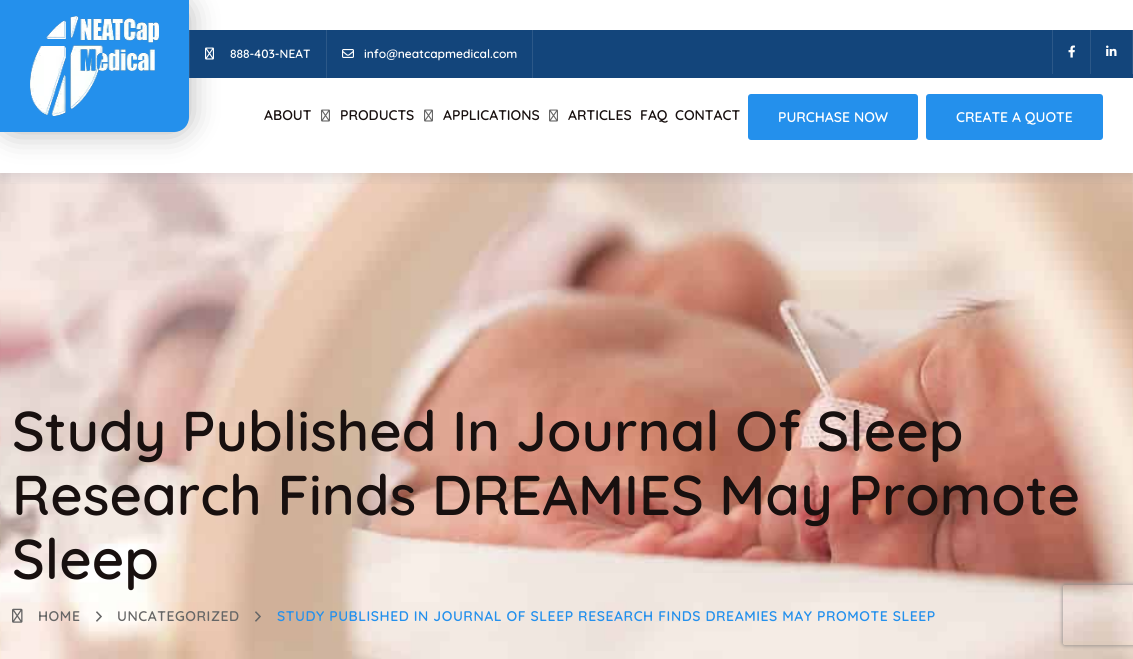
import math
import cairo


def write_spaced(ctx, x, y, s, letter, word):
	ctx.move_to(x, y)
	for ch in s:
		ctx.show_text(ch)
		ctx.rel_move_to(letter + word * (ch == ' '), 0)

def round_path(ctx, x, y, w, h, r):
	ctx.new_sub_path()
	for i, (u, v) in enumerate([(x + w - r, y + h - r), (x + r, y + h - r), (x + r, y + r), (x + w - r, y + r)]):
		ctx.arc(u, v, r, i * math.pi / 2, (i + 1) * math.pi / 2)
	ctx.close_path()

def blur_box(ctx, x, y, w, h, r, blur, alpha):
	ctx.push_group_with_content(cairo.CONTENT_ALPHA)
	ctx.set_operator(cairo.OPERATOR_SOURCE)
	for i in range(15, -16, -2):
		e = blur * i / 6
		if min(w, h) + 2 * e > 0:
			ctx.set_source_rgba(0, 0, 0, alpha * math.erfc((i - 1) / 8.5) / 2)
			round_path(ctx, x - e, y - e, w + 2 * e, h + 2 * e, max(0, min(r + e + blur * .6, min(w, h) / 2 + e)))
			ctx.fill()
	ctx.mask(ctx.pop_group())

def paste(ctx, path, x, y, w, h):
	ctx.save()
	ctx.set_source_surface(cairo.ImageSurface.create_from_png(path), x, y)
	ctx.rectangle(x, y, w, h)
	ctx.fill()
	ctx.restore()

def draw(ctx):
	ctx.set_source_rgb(1, 1, 1)
	ctx.paint()
	paste(ctx, 'media/7.png', 0, 173, 1133, 486)
	ctx.save()
	ctx.rectangle(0, 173, 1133, 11)
	ctx.clip()
	ctx.set_source_rgb(0, 0.129, 0.333)
	blur_box(ctx, 0, 5, 1133, 173, 0, 7.5, 0.1)
	ctx.restore()
	ctx.set_source_rgb(0, 0, 0)
	blur_box(ctx, 0, 0, 189, 132, 15, 15, 0.3)
	ctx.set_source_rgb(0.141, 0.565, 0.922)
	ctx.new_path()
	ctx.move_to(0, 0)
	ctx.line_to(189, 0)
	ctx.line_to(189, 117)
	ctx.curve_to(189, 125.5, 182.5, 132, 174, 132)
	ctx.line_to(0, 132)
	ctx.close_path()
	ctx.fill()
	paste(ctx, 'media/1.png', 30, 16, 129, 100)
	ctx.set_source_rgb(0.078, 0.271, 0.482)
	ctx.rectangle(190, 30, 943, 48)
	ctx.fill()
	ctx.set_source_rgb(0.173, 0.345, 0.533)
	ctx.rectangle(189, 30, 1, 48)
	ctx.fill()
	paste(ctx, 'media/2.png', 205, 47, 9, 13)
	ctx.select_font_face('Quicksand SemiBold')
	ctx.set_font_size(12)
	ctx.set_source_rgb(1, 1, 1)
	ctx.move_to(230, 58)
	ctx.show_text('888-403-NEAT')
	ctx.set_source_rgb(0.173, 0.345, 0.533)
	ctx.rectangle(532, 30, 1, 48)
	ctx.fill()
	ctx.rectangle(326, 30, 1, 48)
	ctx.fill()
	paste(ctx, 'media/3.png', 342, 49, 12, 9)
	ctx.set_source_rgb(1, 1, 1)
	ctx.move_to(364, 58)
	ctx.show_text('info@neatcapmedical.com')
	ctx.set_source_rgb(0.173, 0.345, 0.533)
	ctx.rectangle(1052, 30, 1, 44)
	ctx.fill()
	paste(ctx, 'media/4.png', 1068, 45, 7, 13)
	ctx.rectangle(1132, 30, 1, 44)
	ctx.fill()
	ctx.rectangle(1090, 30, 1, 44)
	ctx.fill()
	paste(ctx, 'media/5.png', 1106, 45, 11, 11)
	ctx.set_font_size(14)
	ctx.set_source_rgb(0.094, 0.063, 0.059)
	ctx.move_to(264, 120)
	ctx.show_text('ABOUT')
	paste(ctx, 'media/6.png', 321, 109, 9, 13)
	ctx.move_to(340, 120)
	ctx.show_text('PRODUCTS')
	paste(ctx, 'media/6.png', 424, 109, 9, 13)
	ctx.move_to(443, 120)
	ctx.show_text('APPLICATIONS')
	paste(ctx, 'media/6.png', 549, 109, 9, 13)
	for x, y, s in [
		(568, 120, 'ARTICLES'),
		(640, 120, 'FAQ'),
		(675, 120, 'CONTACT'),
	]:
		ctx.move_to(x, y)
		ctx.show_text(s)
	ctx.set_source_rgb(0.141, 0.565, 0.922)
	round_path(ctx, 748, 94, 170, 46, 3)
	ctx.fill()
	ctx.set_source_rgb(1, 1, 1)
	ctx.move_to(778, 122)
	ctx.show_text('PURCHASE NOW')
	ctx.set_source_rgb(0.141, 0.565, 0.922)
	round_path(ctx, 926, 94, 177, 46, 3)
	ctx.fill()
	ctx.set_source_rgb(1, 1, 1)
	ctx.move_to(956, 122)
	ctx.show_text('CREATE A QUOTE')
	ctx.set_font_size(56)
	ctx.set_source_rgb(0.094, 0.063, 0.059)
	for x, y, s in [
		(12, 451, 'Study Published In Journal Of Sleep'),
		(12, 515, 'Research Finds DREAMIES May Promote'),
		(12, 579, 'Sleep'),
	]:
		ctx.move_to(x, y)
		ctx.show_text(s)
	paste(ctx, 'media/8.png', 12, 608, 11, 15)
	ctx.set_font_size(14)
	ctx.set_source_rgb(0.4, 0.4, 0.4)
	write_spaced(ctx, 38, 621, 'HOME', 0.55, 0)
	paste(ctx, 'media/9.png', 96, 611, 6, 11)
	write_spaced(ctx, 117, 621, 'UNCATEGORIZED', 0.55, 0)
	paste(ctx, 'media/10.png', 255, 611, 6, 11)
	ctx.set_source_rgb(0.141, 0.565, 0.922)
	write_spaced(ctx, 277, 621, 'STUDY PUBLISHED IN JOURNAL OF SLEEP RESEARCH FINDS DREAMIES MAY PROMOTE SLEEP', 0.55, 0)
	ctx.save()
	ctx.set_fill_rule(cairo.FILL_RULE_EVEN_ODD)
	ctx.new_path()
	ctx.move_to(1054, 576)
	ctx.line_to(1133, 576)
	ctx.line_to(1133, 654)
	ctx.line_to(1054, 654)
	ctx.close_path()
	ctx.move_to(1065, 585)
	ctx.line_to(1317, 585)
	ctx.curve_to(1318, 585, 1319, 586, 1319, 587)
	ctx.line_to(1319, 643)
	ctx.curve_to(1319, 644, 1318, 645, 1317, 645)
	ctx.line_to(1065, 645)
	ctx.curve_to(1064, 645, 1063, 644, 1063, 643)
	ctx.line_to(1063, 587)
	ctx.curve_to(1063, 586, 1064, 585, 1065, 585)
	ctx.close_path()
	ctx.clip()
	ctx.set_source_rgb(0.502, 0.502, 0.502)
	blur_box(ctx, 1063, 585, 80, 60, 2, 2.5, 1)
	ctx.restore()


surface = cairo.ImageSurface(cairo.FORMAT_RGB24, 1133, 659)
ctx = cairo.Context(surface)
options = cairo.FontOptions()
options.set_hint_metrics(cairo.HINT_METRICS_OFF)
options.set_hint_style(cairo.HINT_STYLE_NONE)
ctx.set_font_options(options)
ctx.set_miter_limit(4)
draw(ctx)
surface.write_to_png('image.png')
